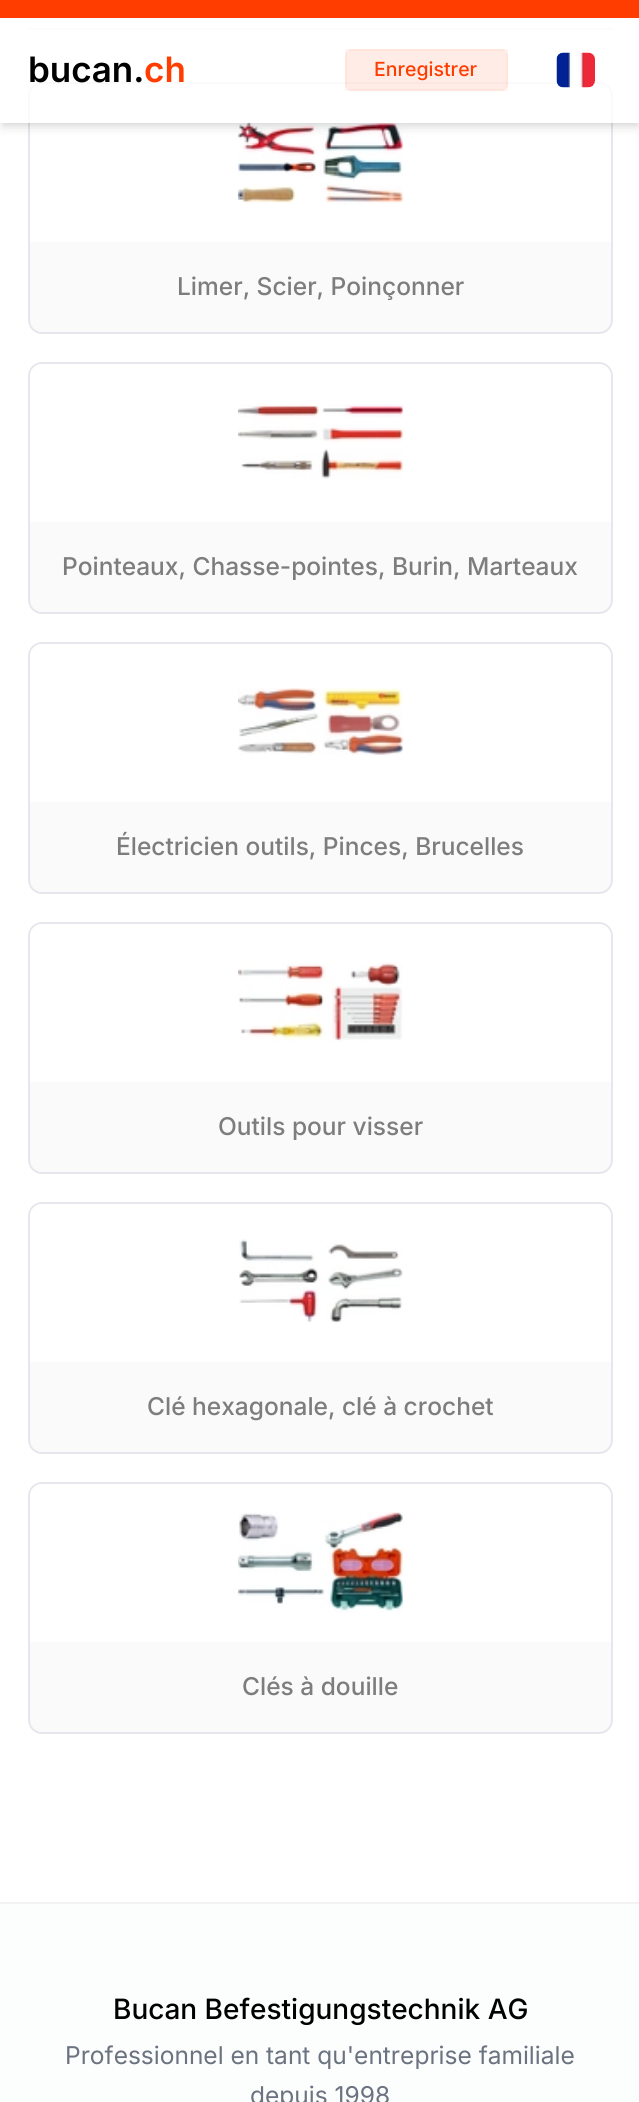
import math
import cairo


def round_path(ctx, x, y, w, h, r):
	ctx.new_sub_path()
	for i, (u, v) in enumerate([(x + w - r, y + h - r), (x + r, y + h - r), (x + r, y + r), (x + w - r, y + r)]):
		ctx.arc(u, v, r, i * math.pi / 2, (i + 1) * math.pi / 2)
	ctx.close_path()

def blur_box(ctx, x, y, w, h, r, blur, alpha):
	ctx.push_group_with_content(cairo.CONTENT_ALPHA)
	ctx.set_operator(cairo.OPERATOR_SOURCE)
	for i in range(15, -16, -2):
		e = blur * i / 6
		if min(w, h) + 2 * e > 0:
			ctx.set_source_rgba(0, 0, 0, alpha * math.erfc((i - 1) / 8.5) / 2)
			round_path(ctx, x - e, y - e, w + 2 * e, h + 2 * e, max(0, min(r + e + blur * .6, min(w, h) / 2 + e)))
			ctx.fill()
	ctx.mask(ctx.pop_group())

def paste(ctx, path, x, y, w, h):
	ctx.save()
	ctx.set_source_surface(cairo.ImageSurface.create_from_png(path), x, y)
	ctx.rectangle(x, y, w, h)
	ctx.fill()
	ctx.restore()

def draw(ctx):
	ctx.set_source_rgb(1, 1, 1)
	ctx.paint()
	ctx.set_source_rgb(0.949, 0.949, 0.949)
	ctx.rectangle(28, 28, 585, 2)
	ctx.fill()
	ctx.set_source_rgb(0.98, 0.98, 0.98)
	round_path(ctx, 29, 83, 583, 250, 13)
	ctx.fill_preserve()
	ctx.set_source_rgb(0.898, 0.906, 0.922)
	ctx.stroke()
	ctx.set_source_rgb(1, 1, 1)
	ctx.new_path()
	ctx.move_to(42, 84)
	ctx.line_to(599, 84)
	ctx.curve_to(605.5, 84, 611, 89.5, 611, 96)
	ctx.line_to(611, 242)
	ctx.line_to(30, 242)
	ctx.line_to(30, 96)
	ctx.curve_to(30, 89.5, 35.5, 84, 42, 84)
	ctx.close_path()
	ctx.fill()
	paste(ctx, 'media/2.png', 238, 120, 165, 84)
	ctx.save()
	ctx.set_fill_rule(cairo.FILL_RULE_EVEN_ODD)
	ctx.new_path()
	ctx.move_to(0, 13)
	ctx.line_to(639, 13)
	ctx.line_to(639, 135)
	ctx.line_to(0, 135)
	ctx.close_path()
	ctx.move_to(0, 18)
	ctx.line_to(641, 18)
	ctx.line_to(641, 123)
	ctx.line_to(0, 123)
	ctx.close_path()
	ctx.clip()
	ctx.set_source_rgb(0, 0, 0)
	blur_box(ctx, 4, 25, 633, 98, 0, 3.5, 0.1)
	ctx.restore()
	ctx.save()
	ctx.set_fill_rule(cairo.FILL_RULE_EVEN_ODD)
	ctx.new_path()
	ctx.move_to(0, 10)
	ctx.line_to(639, 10)
	ctx.line_to(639, 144)
	ctx.line_to(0, 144)
	ctx.close_path()
	ctx.move_to(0, 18)
	ctx.line_to(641, 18)
	ctx.line_to(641, 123)
	ctx.line_to(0, 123)
	ctx.close_path()
	ctx.clip()
	ctx.set_source_rgb(0, 0, 0)
	blur_box(ctx, 2, 26, 637, 102, 0, 5, 0.1)
	ctx.restore()
	ctx.set_source_rgb(1, 0.239, 0)
	ctx.rectangle(0, 0, 639, 18)
	ctx.fill()
	ctx.set_source_rgba(1, 1, 1, 0.8)
	ctx.rectangle(0, 28, 639, 95)
	ctx.fill()
	ctx.select_font_face('Inter SemiBold')
	ctx.set_font_size(35)
	ctx.set_source_rgb(0, 0, 0)
	ctx.move_to(28, 82)
	ctx.show_text('bucan.')
	ctx.set_source_rgb(1, 0.239, 0)
	ctx.move_to(144, 82)
	ctx.show_text('ch')
	ctx.set_source_rgba(1, 0.239, 0, 0.1)
	round_path(ctx, 345, 49, 163, 42, 7)
	ctx.fill()
	ctx.rectangle(346, 50, 161, 40)
	ctx.set_source_rgba(1, 0.239, 0, 0.05)
	ctx.stroke()
	ctx.select_font_face('Inter Medium')
	ctx.set_font_size(19.5)
	ctx.set_source_rgb(1, 0.239, 0)
	ctx.move_to(374, 76)
	ctx.show_text('Enregistrer')
	paste(ctx, 'media/1.png', 556, 52, 39, 36)
	ctx.set_font_size(24.5)
	ctx.set_source_rgb(0.49, 0.49, 0.49)
	ctx.move_to(177, 295)
	ctx.show_text('Limer, Scier, Poinçonner')
	ctx.set_source_rgb(0.98, 0.98, 0.98)
	round_path(ctx, 29, 363, 583, 250, 13)
	ctx.fill_preserve()
	ctx.set_source_rgb(0.898, 0.906, 0.922)
	ctx.stroke()
	ctx.set_source_rgb(1, 1, 1)
	ctx.new_path()
	ctx.move_to(42, 364)
	ctx.line_to(599, 364)
	ctx.curve_to(605.5, 364, 611, 369.5, 611, 376)
	ctx.line_to(611, 522)
	ctx.line_to(30, 522)
	ctx.line_to(30, 376)
	ctx.curve_to(30, 369.5, 35.5, 364, 42, 364)
	ctx.close_path()
	ctx.fill()
	paste(ctx, 'media/3.png', 238, 404, 165, 75)
	ctx.set_source_rgb(0.49, 0.49, 0.49)
	ctx.move_to(62, 575)
	ctx.show_text('Pointeaux, Chasse-pointes, Burin, Marteaux')
	ctx.set_source_rgb(0.98, 0.98, 0.98)
	round_path(ctx, 29, 643, 583, 250, 13)
	ctx.fill_preserve()
	ctx.set_source_rgb(0.898, 0.906, 0.922)
	ctx.stroke()
	ctx.set_source_rgb(1, 1, 1)
	ctx.new_path()
	ctx.move_to(42, 644)
	ctx.line_to(599, 644)
	ctx.curve_to(605.5, 644, 611, 649.5, 611, 656)
	ctx.line_to(611, 802)
	ctx.line_to(30, 802)
	ctx.line_to(30, 656)
	ctx.curve_to(30, 649.5, 35.5, 644, 42, 644)
	ctx.close_path()
	ctx.fill()
	paste(ctx, 'media/4.png', 238, 688, 165, 68)
	ctx.set_source_rgb(0.49, 0.49, 0.49)
	ctx.move_to(116, 855)
	ctx.show_text('Électricien outils, Pinces, Brucelles')
	ctx.set_source_rgb(0.98, 0.98, 0.98)
	round_path(ctx, 29, 923, 583, 250, 13)
	ctx.fill_preserve()
	ctx.set_source_rgb(0.898, 0.906, 0.922)
	ctx.stroke()
	ctx.set_source_rgb(1, 1, 1)
	ctx.new_path()
	ctx.move_to(42, 924)
	ctx.line_to(599, 924)
	ctx.curve_to(605.5, 924, 611, 929.5, 611, 936)
	ctx.line_to(611, 1082)
	ctx.line_to(30, 1082)
	ctx.line_to(30, 936)
	ctx.curve_to(30, 929.5, 35.5, 924, 42, 924)
	ctx.close_path()
	ctx.fill()
	paste(ctx, 'media/5.png', 238, 962, 165, 80)
	ctx.set_source_rgb(0.49, 0.49, 0.49)
	ctx.move_to(218, 1135)
	ctx.show_text('Outils pour visser')
	ctx.set_source_rgb(0.98, 0.98, 0.98)
	round_path(ctx, 29, 1203, 583, 250, 13)
	ctx.fill_preserve()
	ctx.set_source_rgb(0.898, 0.906, 0.922)
	ctx.stroke()
	ctx.set_source_rgb(1, 1, 1)
	ctx.new_path()
	ctx.move_to(42, 1204)
	ctx.line_to(599, 1204)
	ctx.curve_to(605.5, 1204, 611, 1209.5, 611, 1216)
	ctx.line_to(611, 1362)
	ctx.line_to(30, 1362)
	ctx.line_to(30, 1216)
	ctx.curve_to(30, 1209.5, 35.5, 1204, 42, 1204)
	ctx.close_path()
	ctx.fill()
	paste(ctx, 'media/6.png', 239, 1239, 164, 84)
	ctx.set_source_rgb(0.49, 0.49, 0.49)
	ctx.move_to(147, 1415)
	ctx.show_text('Clé hexagonale, clé à crochet')
	ctx.set_source_rgb(0.98, 0.98, 0.98)
	round_path(ctx, 29, 1483, 583, 250, 13)
	ctx.fill_preserve()
	ctx.set_source_rgb(0.898, 0.906, 0.922)
	ctx.stroke()
	ctx.set_source_rgb(1, 1, 1)
	ctx.new_path()
	ctx.move_to(42, 1484)
	ctx.line_to(599, 1484)
	ctx.curve_to(605.5, 1484, 611, 1489.5, 611, 1496)
	ctx.line_to(611, 1642)
	ctx.line_to(30, 1642)
	ctx.line_to(30, 1496)
	ctx.curve_to(30, 1489.5, 35.5, 1484, 42, 1484)
	ctx.close_path()
	ctx.fill()
	paste(ctx, 'media/7.png', 238, 1512, 165, 101)
	ctx.set_source_rgb(0.49, 0.49, 0.49)
	ctx.move_to(242, 1695)
	ctx.show_text('Clés à douille')
	ctx.set_source_rgb(0.949, 0.949, 0.949)
	ctx.rectangle(0, 1902, 639, 2)
	ctx.fill()
	ctx.set_source_rgb(0.988, 0.992, 0.992)
	ctx.rectangle(0, 1904, 639, 198)
	ctx.fill()
	ctx.set_font_size(28)
	ctx.set_source_rgb(0, 0, 0)
	ctx.move_to(113, 2019)
	ctx.show_text('Bucan Befestigungstechnik AG')
	ctx.select_font_face('Inter')
	ctx.set_font_size(24.5)
	ctx.set_source_rgb(0.42, 0.447, 0.502)
	ctx.move_to(65, 2064)
	ctx.show_text('Professionnel en tant qu\'entreprise familiale')
	ctx.move_to(250, 2104)
	ctx.show_text('depuis 1998')


surface = cairo.ImageSurface(cairo.FORMAT_RGB24, 639, 2102)
ctx = cairo.Context(surface)
options = cairo.FontOptions()
options.set_hint_metrics(cairo.HINT_METRICS_OFF)
options.set_hint_style(cairo.HINT_STYLE_NONE)
ctx.set_font_options(options)
ctx.set_miter_limit(4)
draw(ctx)
surface.write_to_png('image.png')
